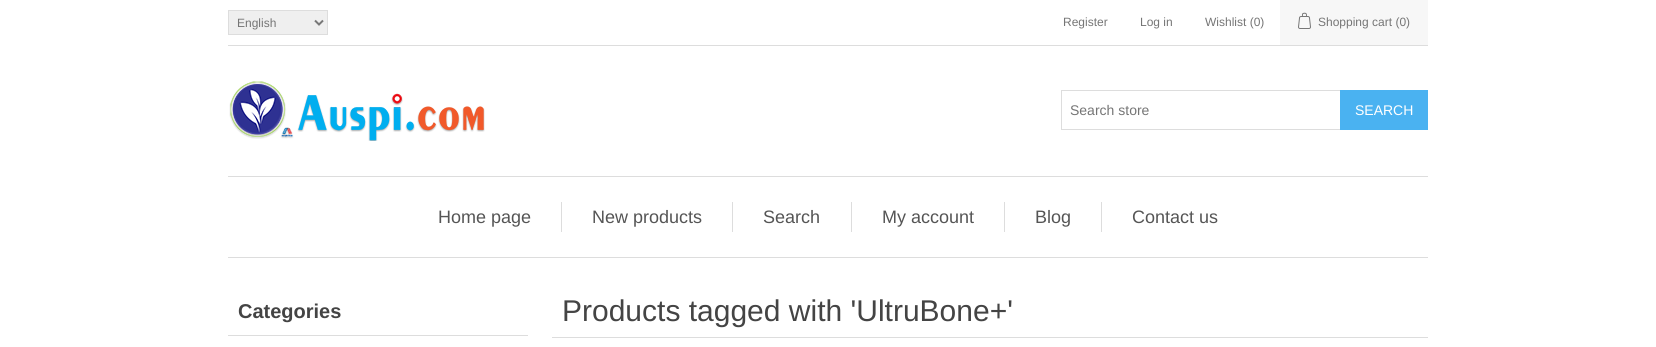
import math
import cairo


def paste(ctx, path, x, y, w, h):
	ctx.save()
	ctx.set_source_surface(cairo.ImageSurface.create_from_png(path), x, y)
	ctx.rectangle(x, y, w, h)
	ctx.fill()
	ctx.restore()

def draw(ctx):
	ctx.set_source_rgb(1, 1, 1)
	ctx.paint()
	ctx.set_source_rgb(0.867, 0.867, 0.867)
	ctx.rectangle(228, 45, 1200, 1)
	ctx.fill()
	ctx.set_source_rgb(0.937, 0.937, 0.937)
	ctx.rectangle(228.5, 10.5, 99, 24)
	ctx.fill_preserve()
	ctx.set_source_rgb(0.867, 0.867, 0.867)
	ctx.set_line_width(1)
	ctx.stroke()
	ctx.new_path()
	ctx.move_to(315, 20.5)
	ctx.line_to(319, 24.5)
	ctx.line_to(323, 20.5)
	ctx.set_source_rgb(0.467, 0.467, 0.467)
	ctx.set_line_width(2)
	ctx.stroke()
	ctx.select_font_face('Liberation Sans')
	ctx.set_font_size(12)
	ctx.set_source_rgb(0.459, 0.459, 0.459)
	for x, y, s in [
		(237, 27, 'English'),
		(1063, 26, 'Register'),
		(1140, 26, 'Log in'),
		(1205, 26, 'Wishlist (0)'),
	]:
		ctx.move_to(x, y)
		ctx.show_text(s)
	ctx.set_source_rgb(0.965, 0.965, 0.965)
	ctx.rectangle(1280, 0, 148, 45)
	ctx.fill()
	paste(ctx, 'media/1.png', 1298, 12, 13, 17)
	ctx.set_source_rgb(0.459, 0.459, 0.459)
	ctx.move_to(1318, 26)
	ctx.show_text('Shopping cart (0)')
	paste(ctx, 'media/2.png', 229, 81, 256, 60)
	ctx.rectangle(1061.5, 90.5, 279, 39)
	ctx.set_source_rgb(0.867, 0.867, 0.867)
	ctx.set_line_width(1)
	ctx.stroke()
	ctx.set_font_size(14)
	ctx.set_source_rgb(0.459, 0.459, 0.459)
	ctx.move_to(1070, 115)
	ctx.show_text('Search store')
	ctx.set_source_rgb(0.29, 0.698, 0.945)
	ctx.rectangle(1340, 90, 88, 40)
	ctx.fill()
	ctx.set_source_rgb(1, 1, 1)
	ctx.move_to(1355, 115)
	ctx.show_text('SEARCH')
	ctx.set_source_rgb(0.867, 0.867, 0.867)
	ctx.rectangle(228, 176, 1200, 1)
	ctx.fill()
	ctx.rectangle(228, 257, 1200, 1)
	ctx.fill()
	ctx.set_font_size(18)
	ctx.set_source_rgb(0.333, 0.333, 0.333)
	ctx.move_to(438, 223)
	ctx.show_text('Home page')
	ctx.set_source_rgb(0.867, 0.867, 0.867)
	ctx.rectangle(561, 202, 1, 30)
	ctx.fill()
	ctx.set_source_rgb(0.333, 0.333, 0.333)
	ctx.move_to(592, 223)
	ctx.show_text('New products')
	ctx.set_source_rgb(0.867, 0.867, 0.867)
	ctx.rectangle(732, 202, 1, 30)
	ctx.fill()
	ctx.set_source_rgb(0.333, 0.333, 0.333)
	ctx.move_to(763, 223)
	ctx.show_text('Search')
	ctx.set_source_rgb(0.867, 0.867, 0.867)
	ctx.rectangle(851, 202, 1, 30)
	ctx.fill()
	ctx.set_source_rgb(0.333, 0.333, 0.333)
	ctx.move_to(882, 223)
	ctx.show_text('My account')
	ctx.set_source_rgb(0.867, 0.867, 0.867)
	ctx.rectangle(1004, 202, 1, 30)
	ctx.fill()
	ctx.set_source_rgb(0.333, 0.333, 0.333)
	ctx.move_to(1035, 223)
	ctx.show_text('Blog')
	ctx.set_source_rgb(0.867, 0.867, 0.867)
	ctx.rectangle(1101, 202, 1, 30)
	ctx.fill()
	ctx.set_source_rgb(0.333, 0.333, 0.333)
	ctx.move_to(1132, 223)
	ctx.show_text('Contact us')
	ctx.set_source_rgb(0.867, 0.867, 0.867)
	ctx.rectangle(228, 335, 300, 1)
	ctx.fill()
	ctx.select_font_face('Liberation Sans', cairo.FONT_SLANT_NORMAL, cairo.FONT_WEIGHT_BOLD)
	ctx.set_font_size(20)
	ctx.set_source_rgb(0.267, 0.267, 0.267)
	ctx.move_to(238, 318)
	ctx.show_text('Categories')
	ctx.set_source_rgb(0.867, 0.867, 0.867)
	ctx.rectangle(552, 337, 876, 1)
	ctx.fill()
	ctx.select_font_face('Liberation Sans')
	ctx.set_font_size(30)
	ctx.set_source_rgb(0.267, 0.267, 0.267)
	ctx.move_to(562, 321)
	ctx.show_text('Products tagged with \'UltruBone+\'')


surface = cairo.ImageSurface(cairo.FORMAT_RGB24, 1656, 347)
ctx = cairo.Context(surface)
options = cairo.FontOptions()
options.set_hint_metrics(cairo.HINT_METRICS_OFF)
options.set_hint_style(cairo.HINT_STYLE_NONE)
ctx.set_font_options(options)
ctx.set_miter_limit(4)
draw(ctx)
surface.write_to_png('image.png')
